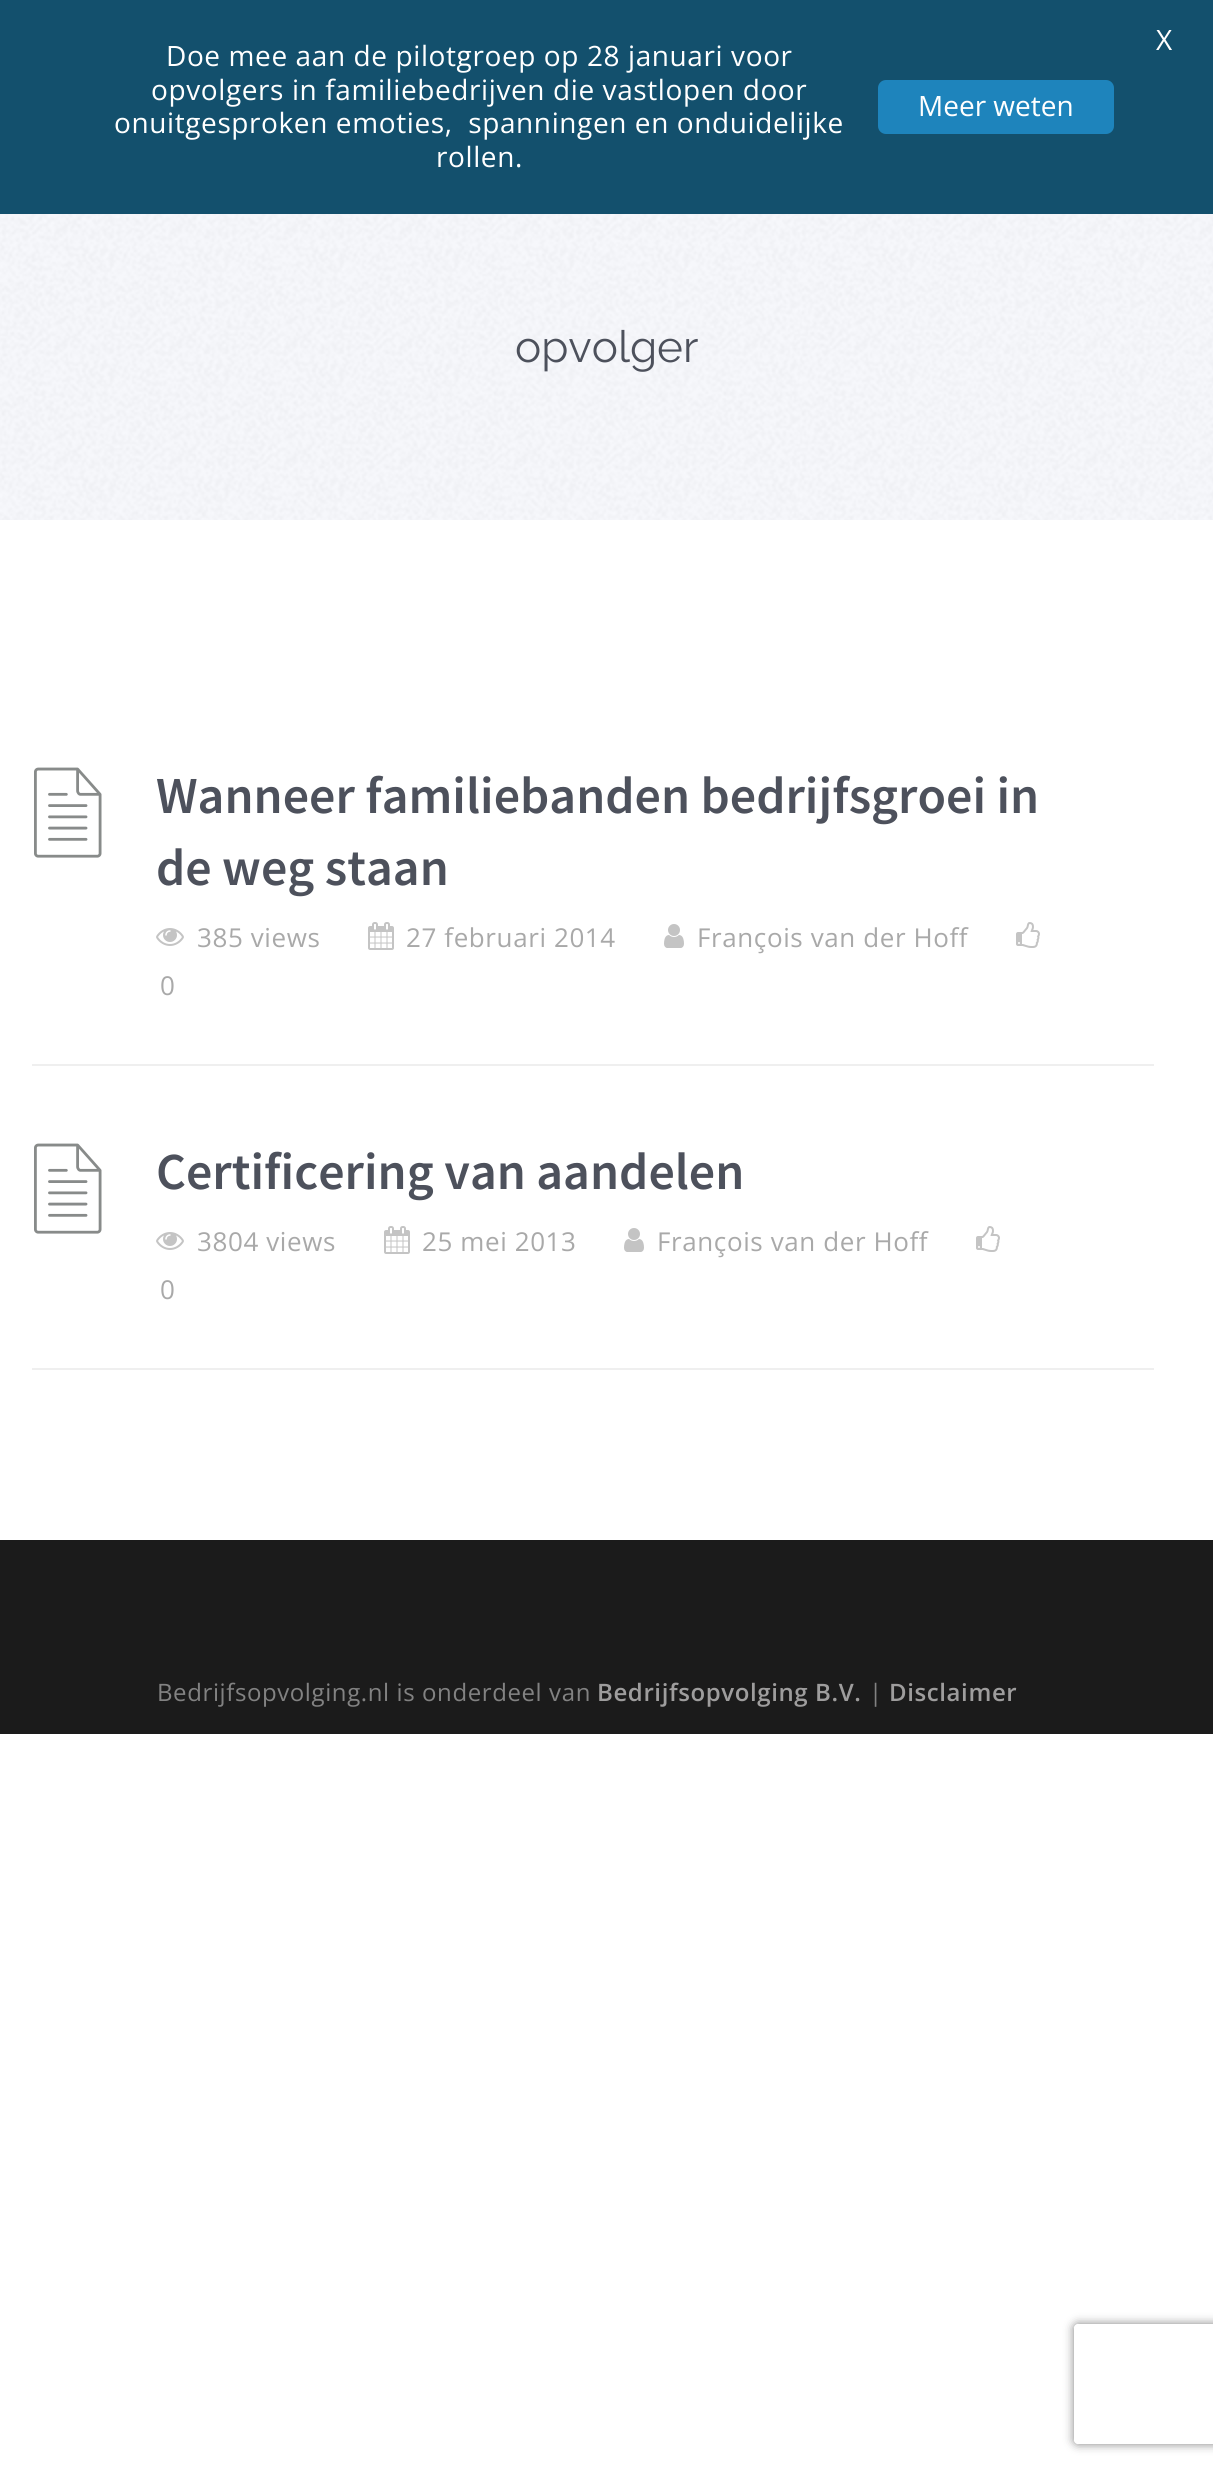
import math
import cairo


def write_spaced(ctx, x, y, s, letter, word):
	ctx.move_to(x, y)
	for ch in s:
		ctx.show_text(ch)
		ctx.rel_move_to(letter + word * (ch == ' '), 0)

def round_path(ctx, x, y, w, h, r):
	ctx.new_sub_path()
	for i, (u, v) in enumerate([(x + w - r, y + h - r), (x + r, y + h - r), (x + r, y + r), (x + w - r, y + r)]):
		ctx.arc(u, v, r, i * math.pi / 2, (i + 1) * math.pi / 2)
	ctx.close_path()

def blur_box(ctx, x, y, w, h, r, blur, alpha):
	ctx.push_group_with_content(cairo.CONTENT_ALPHA)
	ctx.set_operator(cairo.OPERATOR_SOURCE)
	for i in range(15, -16, -2):
		e = blur * i / 6
		if min(w, h) + 2 * e > 0:
			ctx.set_source_rgba(0, 0, 0, alpha * math.erfc((i - 1) / 8.5) / 2)
			round_path(ctx, x - e, y - e, w + 2 * e, h + 2 * e, max(0, min(r + e + blur * .6, min(w, h) / 2 + e)))
			ctx.fill()
	ctx.mask(ctx.pop_group())

def paste(ctx, path, x, y, w, h):
	ctx.save()
	ctx.set_source_surface(cairo.ImageSurface.create_from_png(path), x, y)
	ctx.rectangle(x, y, w, h)
	ctx.fill()
	ctx.restore()

def draw(ctx):
	ctx.set_source_rgb(1, 1, 1)
	ctx.paint()
	ctx.set_source_rgb(0.075, 0.314, 0.427)
	ctx.rectangle(0, 0, 1213, 214)
	ctx.fill()
	ctx.select_font_face('Open Sans')
	ctx.set_font_size(28)
	ctx.set_source_rgb(1, 1, 1)
	ctx.move_to(1156, 50)
	ctx.show_text('X')
	for x, y, s in [
		(166, 66, 'Doe mee aan de pilotgroep op 28 januari voor'),
		(151, 100, 'opvolgers in familiebedrijven die vastlopen door'),
		(114, 133, 'onuitgesproken emoties,  spanningen en onduidelijke'),
		(436, 167, 'rollen.'),
	]:
		write_spaced(ctx, x, y, s, 0.6, 0)
	ctx.set_source_rgb(0.118, 0.518, 0.737)
	round_path(ctx, 878, 80, 236, 54, 8)
	ctx.fill()
	ctx.set_source_rgb(1, 1, 1)
	ctx.move_to(918, 116)
	ctx.show_text('Meer weten')
	paste(ctx, 'media/1.png', 0, 214, 1213, 306)
	ctx.select_font_face('Raleway Thin')
	ctx.set_font_size(44)
	ctx.set_source_rgb(0.302, 0.318, 0.361)
	ctx.move_to(515, 362)
	ctx.show_text('opvolger')
	ctx.set_source_rgb(0.937, 0.937, 0.937)
	ctx.rectangle(32, 1064, 1122, 2)
	ctx.fill()
	paste(ctx, 'media/2.png', 34, 767, 68, 91)
	ctx.select_font_face('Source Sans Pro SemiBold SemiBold')
	ctx.set_font_size(52)
	ctx.set_source_rgb(0.302, 0.318, 0.361)
	ctx.move_to(156, 813)
	ctx.show_text('Wanneer familiebanden bedrijfsgroei in')
	ctx.move_to(156, 885)
	ctx.show_text('de weg staan')
	paste(ctx, 'media/3.png', 156, 928, 28, 18)
	ctx.select_font_face('Open Sans')
	ctx.set_font_size(26)
	ctx.set_source_rgb(0.663, 0.663, 0.663)
	write_spaced(ctx, 197, 947, '385 views', 0.6, 0)
	paste(ctx, 'media/4.png', 368, 922, 26, 28)
	write_spaced(ctx, 406, 947, '27 februari 2014', 0.6, 0)
	paste(ctx, 'media/5.png', 664, 924, 20, 24)
	write_spaced(ctx, 697, 947, 'François van der Hoff', 0.6, 0)
	paste(ctx, 'media/6.png', 1016, 922, 24, 26)
	write_spaced(ctx, 160, 995, '0', 0.6, 0)
	ctx.set_source_rgb(0.937, 0.937, 0.937)
	ctx.rectangle(32, 1368, 1122, 2)
	ctx.fill()
	paste(ctx, 'media/2.png', 34, 1143, 68, 91)
	ctx.select_font_face('Source Sans Pro SemiBold SemiBold')
	ctx.set_font_size(52)
	ctx.set_source_rgb(0.302, 0.318, 0.361)
	ctx.move_to(156, 1189)
	ctx.show_text('Certificering van aandelen')
	paste(ctx, 'media/3.png', 156, 1232, 28, 18)
	ctx.select_font_face('Open Sans')
	ctx.set_font_size(26)
	ctx.set_source_rgb(0.663, 0.663, 0.663)
	write_spaced(ctx, 197, 1251, '3804 views', 0.6, 0)
	paste(ctx, 'media/4.png', 384, 1226, 26, 28)
	write_spaced(ctx, 422, 1251, '25 mei 2013', 0.6, 0)
	paste(ctx, 'media/5.png', 624, 1228, 20, 24)
	write_spaced(ctx, 657, 1251, 'François van der Hoff', 0.6, 0)
	paste(ctx, 'media/6.png', 976, 1226, 24, 26)
	write_spaced(ctx, 160, 1299, '0', 0.6, 0)
	ctx.set_source_rgb(0.106, 0.106, 0.106)
	ctx.rectangle(0, 1540, 1213, 194)
	ctx.fill()
	ctx.set_font_size(24)
	ctx.set_source_rgb(0.51, 0.51, 0.51)
	write_spaced(ctx, 157, 1701, 'Bedrijfsopvolging.nl is onderdeel van', 0.6, 0)
	ctx.select_font_face('Open Sans SemiBold')
	ctx.set_source_rgb(0.62, 0.616, 0.616)
	write_spaced(ctx, 597, 1701, 'Bedrijfsopvolging B.V.', 0.6, 0)
	ctx.select_font_face('Open Sans')
	ctx.set_source_rgb(0.51, 0.51, 0.51)
	write_spaced(ctx, 869, 1701, '|', 0.6, 0)
	ctx.select_font_face('Open Sans SemiBold')
	ctx.set_source_rgb(0.62, 0.616, 0.616)
	write_spaced(ctx, 889, 1701, 'Disclaimer', 0.6, 0)
	ctx.save()
	ctx.set_fill_rule(cairo.FILL_RULE_EVEN_ODD)
	ctx.new_path()
	ctx.move_to(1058, 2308)
	ctx.line_to(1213, 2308)
	ctx.line_to(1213, 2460)
	ctx.line_to(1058, 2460)
	ctx.close_path()
	ctx.move_to(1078, 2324)
	ctx.line_to(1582, 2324)
	ctx.curve_to(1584, 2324, 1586, 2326, 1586, 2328)
	ctx.line_to(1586, 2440)
	ctx.curve_to(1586, 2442, 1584, 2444, 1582, 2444)
	ctx.line_to(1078, 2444)
	ctx.curve_to(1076, 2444, 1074, 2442, 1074, 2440)
	ctx.line_to(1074, 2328)
	ctx.curve_to(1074, 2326, 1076, 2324, 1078, 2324)
	ctx.close_path()
	ctx.clip()
	ctx.set_source_rgb(0.502, 0.502, 0.502)
	blur_box(ctx, 1074, 2324, 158, 120, 4, 5, 1)
	ctx.restore()


surface = cairo.ImageSurface(cairo.FORMAT_RGB24, 1213, 2471)
ctx = cairo.Context(surface)
options = cairo.FontOptions()
options.set_hint_metrics(cairo.HINT_METRICS_OFF)
options.set_hint_style(cairo.HINT_STYLE_NONE)
ctx.set_font_options(options)
ctx.set_miter_limit(4)
draw(ctx)
surface.write_to_png('image.png')
